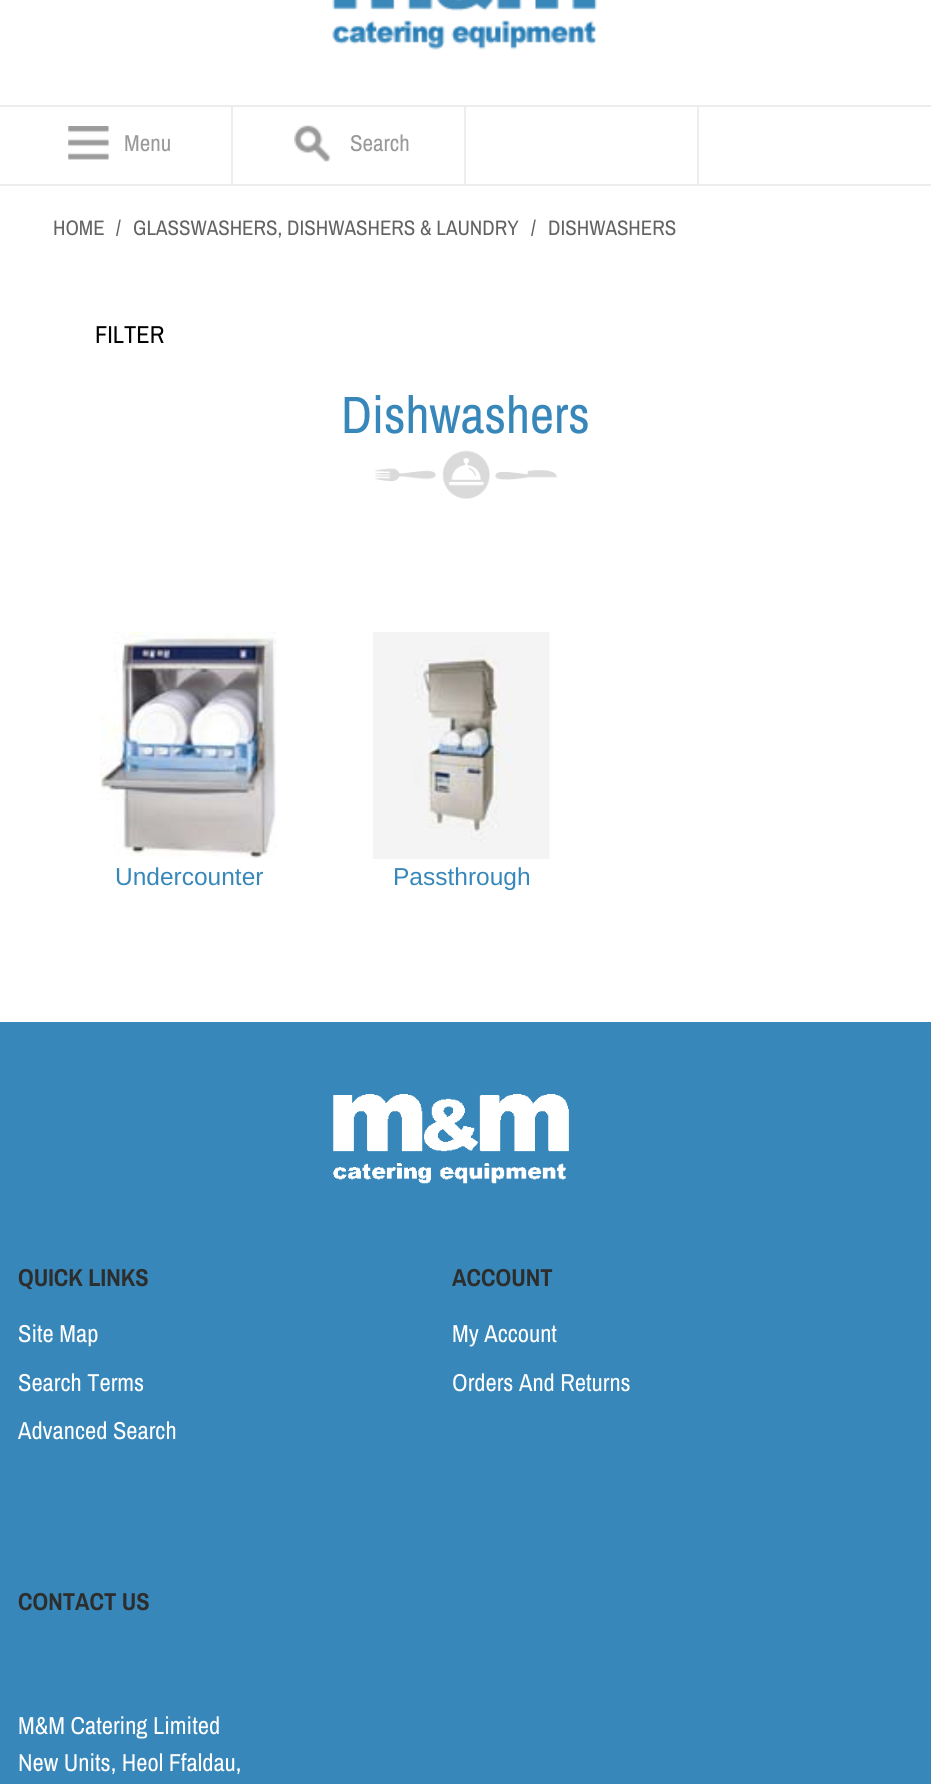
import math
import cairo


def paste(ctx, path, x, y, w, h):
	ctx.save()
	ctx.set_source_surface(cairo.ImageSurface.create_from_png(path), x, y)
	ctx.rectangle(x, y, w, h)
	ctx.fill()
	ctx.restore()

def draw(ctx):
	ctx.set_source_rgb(1, 1, 1)
	ctx.paint()
	paste(ctx, 'media/1.png', 332, 0, 266, 50)
	ctx.set_source_rgb(0.929, 0.929, 0.929)
	ctx.rectangle(0, 105, 931, 2)
	ctx.rectangle(0, 184, 931, 2)
	ctx.rectangle(231, 107, 2, 77)
	ctx.fill()
	paste(ctx, 'media/2.png', 68, 126, 42, 34)
	ctx.select_font_face('Archivo Narrow')
	ctx.set_font_size(23)
	ctx.set_source_rgb(0.6, 0.6, 0.6)
	ctx.move_to(124, 151)
	ctx.show_text('Menu')
	ctx.set_source_rgb(0.929, 0.929, 0.929)
	ctx.rectangle(464, 107, 2, 77)
	ctx.fill()
	paste(ctx, 'media/3.png', 294, 125, 37, 37)
	ctx.set_source_rgb(0.6, 0.6, 0.6)
	ctx.move_to(350, 151)
	ctx.show_text('Search')
	ctx.set_source_rgb(0.929, 0.929, 0.929)
	ctx.rectangle(697, 107, 2, 77)
	ctx.fill()
	ctx.set_font_size(21)
	ctx.set_source_rgb(0.388, 0.388, 0.388)
	for x, y, s in [
		(53, 235, 'HOME'),
		(116, 235, '/'),
		(133, 235, 'GLASSWASHERS, DISHWASHERS & LAUNDRY'),
		(531, 235, '/'),
		(548, 235, 'DISHWASHERS'),
	]:
		ctx.move_to(x, y)
		ctx.show_text(s)
	ctx.set_font_size(24.5)
	ctx.set_source_rgb(0, 0, 0)
	ctx.move_to(95, 343)
	ctx.show_text('FILTER')
	paste(ctx, 'media/4.png', 375, 450, 182, 49)
	ctx.set_font_size(52.5)
	ctx.set_source_rgb(0.216, 0.529, 0.729)
	ctx.move_to(341, 433)
	ctx.show_text('Dishwashers')
	paste(ctx, 'media/5.png', 99, 631, 178, 227)
	ctx.select_font_face('Liberation Sans')
	ctx.set_font_size(24.5)
	ctx.move_to(115, 885)
	ctx.show_text('Undercounter')
	paste(ctx, 'media/6.png', 373, 632, 177, 227)
	ctx.move_to(393, 885)
	ctx.show_text('Passthrough')
	ctx.rectangle(0, 1022, 931, 762)
	ctx.fill()
	paste(ctx, 'media/7.png', 333, 1094, 236, 90)
	ctx.select_font_face('Archivo Narrow', cairo.FONT_SLANT_NORMAL, cairo.FONT_WEIGHT_BOLD)
	ctx.set_source_rgb(0.173, 0.18, 0.18)
	ctx.move_to(18, 1286)
	ctx.show_text('QUICK LINKS')
	ctx.select_font_face('Archivo Narrow')
	ctx.set_source_rgb(1, 1, 1)
	for x, y, s in [
		(18, 1342, 'Site Map'),
		(18, 1391, 'Search Terms'),
		(18, 1439, 'Advanced Search'),
	]:
		ctx.move_to(x, y)
		ctx.show_text(s)
	ctx.select_font_face('Archivo Narrow', cairo.FONT_SLANT_NORMAL, cairo.FONT_WEIGHT_BOLD)
	ctx.set_source_rgb(0.173, 0.18, 0.18)
	ctx.move_to(452, 1286)
	ctx.show_text('ACCOUNT')
	ctx.select_font_face('Archivo Narrow')
	ctx.set_source_rgb(1, 1, 1)
	ctx.move_to(452, 1342)
	ctx.show_text('My Account')
	ctx.move_to(452, 1391)
	ctx.show_text('Orders And Returns')
	ctx.select_font_face('Archivo Narrow', cairo.FONT_SLANT_NORMAL, cairo.FONT_WEIGHT_BOLD)
	ctx.set_source_rgb(0.173, 0.18, 0.18)
	ctx.move_to(18, 1610)
	ctx.show_text('CONTACT US')
	ctx.select_font_face('Archivo Narrow')
	ctx.set_source_rgb(1, 1, 1)
	ctx.move_to(18, 1734)
	ctx.show_text('M&M Catering Limited')
	ctx.move_to(18, 1771)
	ctx.show_text('New Units, Heol Ffaldau,')


surface = cairo.ImageSurface(cairo.FORMAT_RGB24, 931, 1784)
ctx = cairo.Context(surface)
options = cairo.FontOptions()
options.set_hint_metrics(cairo.HINT_METRICS_OFF)
options.set_hint_style(cairo.HINT_STYLE_NONE)
ctx.set_font_options(options)
ctx.set_miter_limit(4)
draw(ctx)
surface.write_to_png('image.png')
